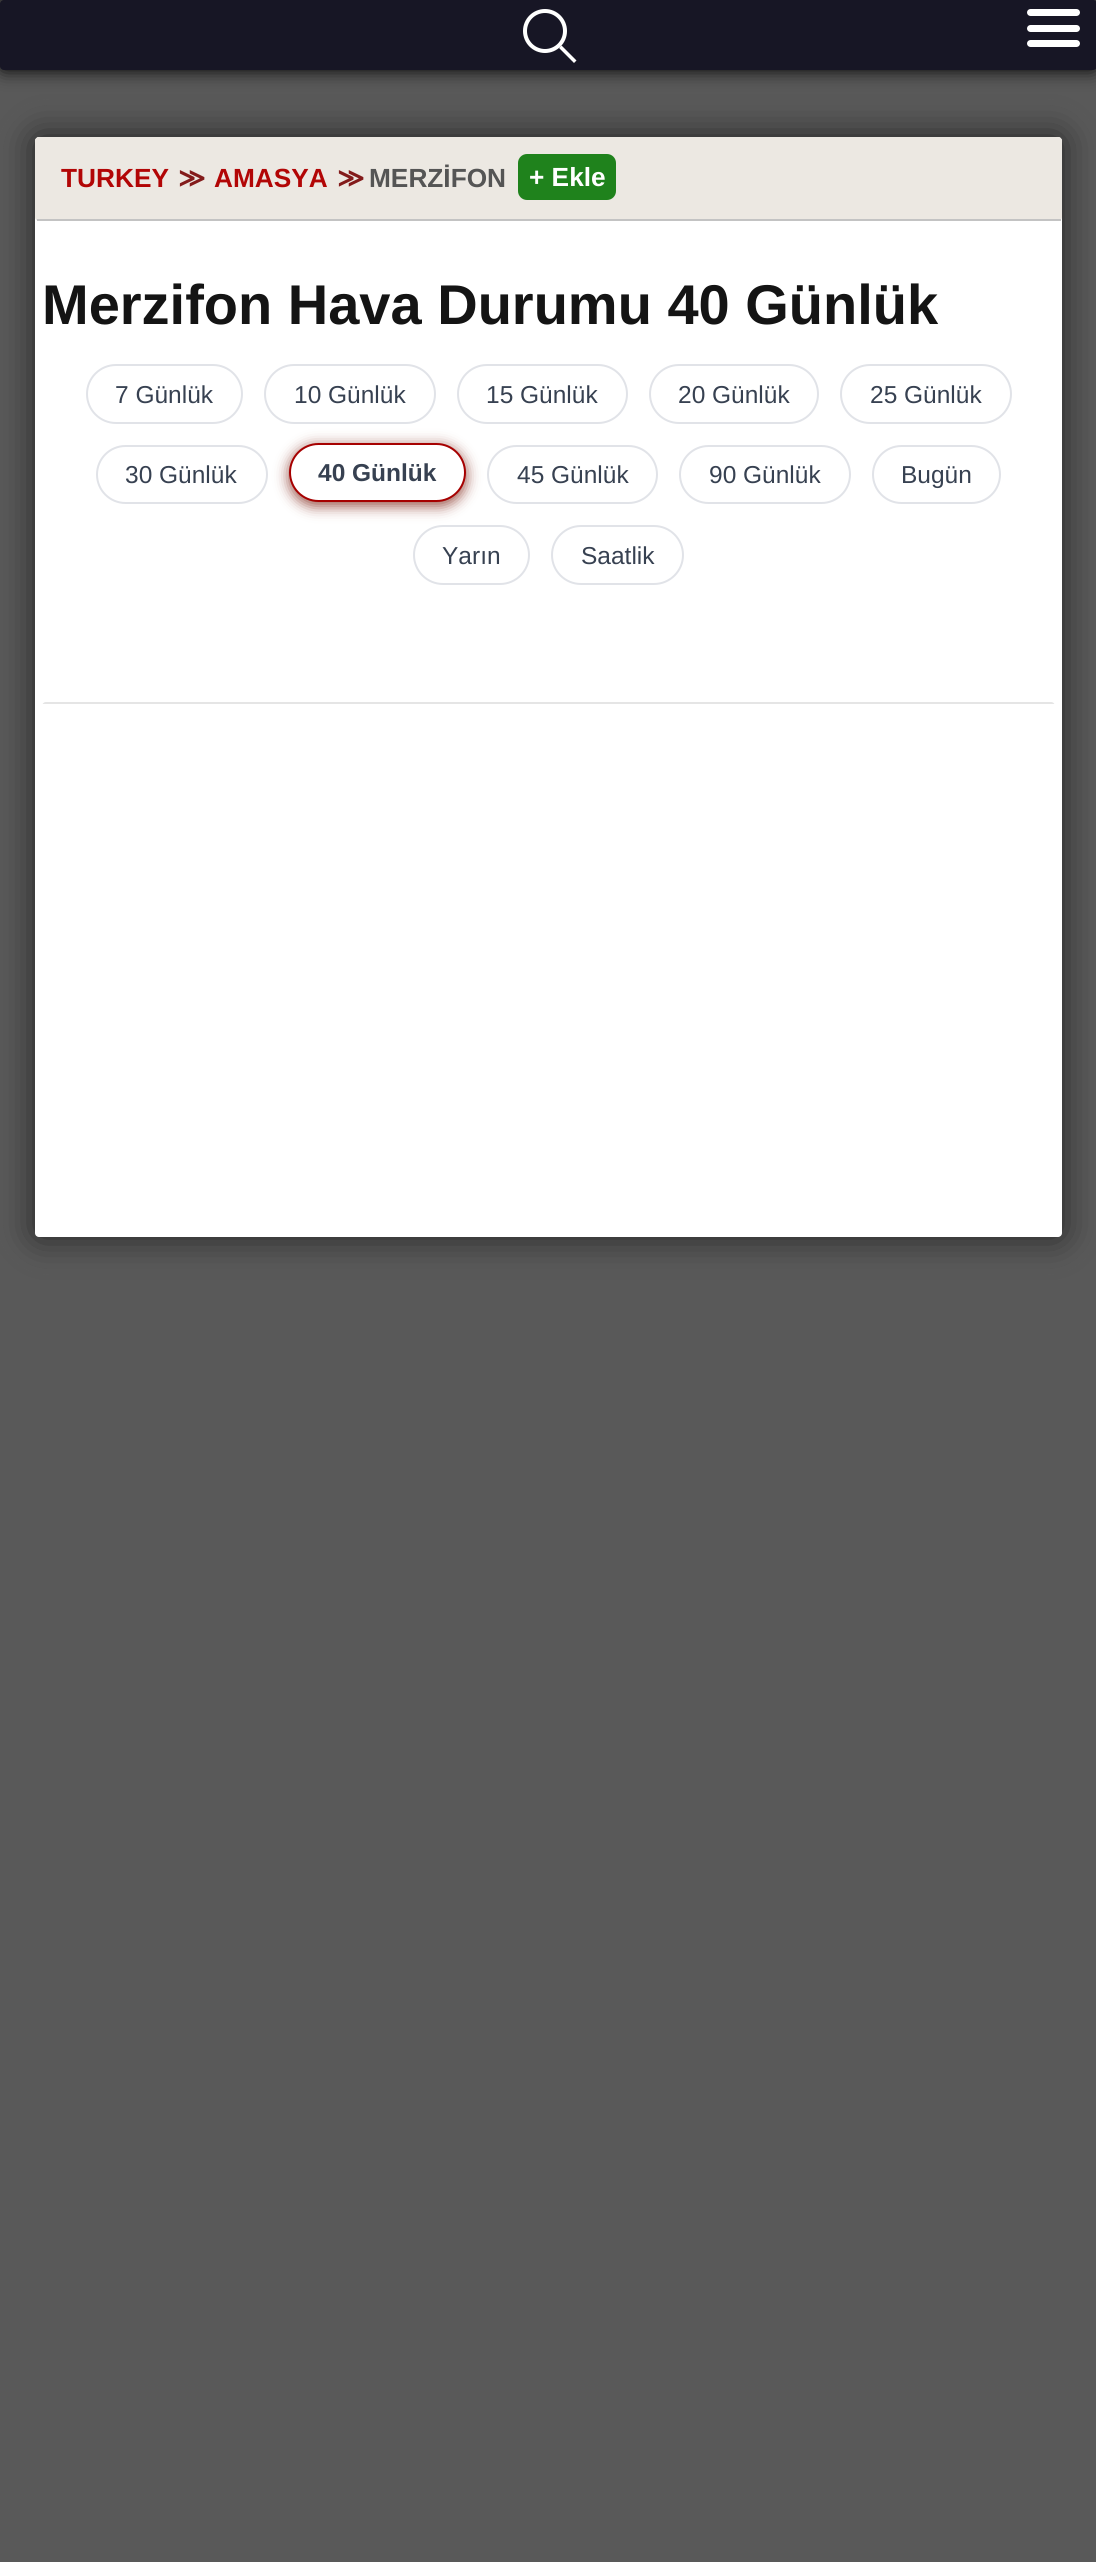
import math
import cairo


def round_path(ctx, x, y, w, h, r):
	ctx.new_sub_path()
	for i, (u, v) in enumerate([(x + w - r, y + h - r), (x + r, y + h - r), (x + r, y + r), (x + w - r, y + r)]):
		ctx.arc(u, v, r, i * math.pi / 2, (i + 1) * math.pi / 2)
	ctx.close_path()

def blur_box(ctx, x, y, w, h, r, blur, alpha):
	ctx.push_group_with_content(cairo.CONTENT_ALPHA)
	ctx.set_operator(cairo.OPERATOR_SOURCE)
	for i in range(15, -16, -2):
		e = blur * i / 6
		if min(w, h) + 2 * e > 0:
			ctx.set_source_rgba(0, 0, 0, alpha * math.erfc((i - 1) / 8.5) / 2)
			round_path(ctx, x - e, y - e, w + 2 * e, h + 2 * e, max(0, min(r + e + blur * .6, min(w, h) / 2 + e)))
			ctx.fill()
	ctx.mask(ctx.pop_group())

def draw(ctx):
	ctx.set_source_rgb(0.349, 0.349, 0.349)
	ctx.paint()
	ctx.set_source_rgb(0, 0, 0)
	blur_box(ctx, 0, 0, 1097, 70, 4, 9, 1)
	ctx.set_source_rgb(0.09, 0.086, 0.145)
	round_path(ctx, 0, 0, 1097, 70, 4)
	ctx.fill()
	ctx.set_source_rgb(1, 1, 1)
	ctx.new_path()
	ctx.move_to(561.5, 45.5)
	ctx.line_to(576.5, 60.5)
	ctx.line_to(574, 63)
	ctx.line_to(559, 48)
	ctx.close_path()
	ctx.fill()
	ctx.arc(545, 31, 20, 0, 2 * math.pi)
	ctx.set_line_width(4)
	ctx.stroke()
	round_path(ctx, 1027, 9, 53, 7, 3.5)
	ctx.fill()
	round_path(ctx, 1027, 25, 53, 7, 3.5)
	ctx.fill()
	round_path(ctx, 1027, 40, 53, 7, 3.5)
	ctx.fill()
	ctx.set_source_rgb(0.133, 0.133, 0.133)
	blur_box(ctx, 35, 137, 1027, 1100, 4, 17.5, 1)
	ctx.set_source_rgb(1, 1, 1)
	round_path(ctx, 35, 137, 1027, 1100, 4)
	ctx.fill()
	ctx.set_source_rgb(0.922, 0.91, 0.886)
	round_path(ctx, 35, 137, 1027, 84, 4)
	ctx.fill()
	ctx.set_source_rgb(0.765, 0.765, 0.765)
	ctx.rectangle(37, 219, 1024, 2)
	ctx.fill()
	ctx.select_font_face('Liberation Sans', cairo.FONT_SLANT_NORMAL, cairo.FONT_WEIGHT_BOLD)
	ctx.set_font_size(26.25)
	ctx.set_source_rgb(0.698, 0.024, 0.024)
	ctx.move_to(61, 187)
	ctx.show_text('TURKEY')
	ctx.select_font_face('DejaVu Sans', cairo.FONT_SLANT_NORMAL, cairo.FONT_WEIGHT_BOLD)
	ctx.set_source_rgb(0.514, 0.106, 0.106)
	ctx.move_to(178, 187)
	ctx.show_text('≫')
	ctx.select_font_face('Liberation Sans', cairo.FONT_SLANT_NORMAL, cairo.FONT_WEIGHT_BOLD)
	ctx.set_source_rgb(0.698, 0.024, 0.024)
	ctx.move_to(214, 187)
	ctx.show_text('AMASYA')
	ctx.select_font_face('DejaVu Sans', cairo.FONT_SLANT_NORMAL, cairo.FONT_WEIGHT_BOLD)
	ctx.set_source_rgb(0.514, 0.106, 0.106)
	ctx.move_to(337, 187)
	ctx.show_text('≫')
	ctx.select_font_face('Liberation Sans', cairo.FONT_SLANT_NORMAL, cairo.FONT_WEIGHT_BOLD)
	ctx.set_source_rgb(0.333, 0.333, 0.333)
	ctx.move_to(369, 187)
	ctx.show_text('MERZİFON')
	ctx.set_source_rgb(0.122, 0.51, 0.11)
	round_path(ctx, 518, 154, 98, 46, 9)
	ctx.fill()
	ctx.set_source_rgb(1, 1, 1)
	ctx.move_to(529, 186)
	ctx.show_text('+ Ekle')
	ctx.set_font_size(56)
	ctx.set_source_rgb(0.082, 0.082, 0.082)
	ctx.move_to(42, 324)
	ctx.show_text('Merzifon Hava Durumu 40 Günlük')
	round_path(ctx, 87, 365, 155, 58, 29)
	ctx.set_source_rgb(0.882, 0.89, 0.91)
	ctx.set_line_width(2)
	ctx.stroke()
	ctx.select_font_face('Liberation Sans')
	ctx.set_font_size(24.5)
	ctx.set_source_rgb(0.216, 0.255, 0.318)
	ctx.move_to(115, 403)
	ctx.show_text('7 Günlük')
	round_path(ctx, 265, 365, 170, 58, 29)
	ctx.set_source_rgb(0.882, 0.89, 0.91)
	ctx.stroke()
	ctx.set_source_rgb(0.216, 0.255, 0.318)
	ctx.move_to(294, 403)
	ctx.show_text('10 Günlük')
	round_path(ctx, 458, 365, 169, 58, 29)
	ctx.set_source_rgb(0.882, 0.89, 0.91)
	ctx.stroke()
	ctx.set_source_rgb(0.216, 0.255, 0.318)
	ctx.move_to(486, 403)
	ctx.show_text('15 Günlük')
	round_path(ctx, 650, 365, 168, 58, 29)
	ctx.set_source_rgb(0.882, 0.89, 0.91)
	ctx.stroke()
	ctx.set_source_rgb(0.216, 0.255, 0.318)
	ctx.move_to(678, 403)
	ctx.show_text('20 Günlük')
	round_path(ctx, 841, 365, 170, 58, 29)
	ctx.set_source_rgb(0.882, 0.89, 0.91)
	ctx.stroke()
	ctx.set_source_rgb(0.216, 0.255, 0.318)
	ctx.move_to(870, 403)
	ctx.show_text('25 Günlük')
	round_path(ctx, 97, 446, 170, 57, 28.5)
	ctx.set_source_rgb(0.882, 0.89, 0.91)
	ctx.stroke()
	ctx.set_source_rgb(0.216, 0.255, 0.318)
	ctx.move_to(125, 483)
	ctx.show_text('30 Günlük')
	round_path(ctx, 488, 446, 169, 57, 28.5)
	ctx.set_source_rgb(0.882, 0.89, 0.91)
	ctx.stroke()
	round_path(ctx, 414, 526, 115, 58, 29)
	ctx.stroke()
	ctx.set_source_rgb(0.596, 0.314, 0.271)
	blur_box(ctx, 289, 446, 177, 60, 30, 7, 1)
	ctx.set_source_rgb(1, 1, 1)
	round_path(ctx, 290, 444, 175, 57, 28.5)
	ctx.fill_preserve()
	ctx.set_source_rgb(0.651, 0, 0)
	ctx.stroke()
	ctx.select_font_face('Liberation Sans', cairo.FONT_SLANT_NORMAL, cairo.FONT_WEIGHT_BOLD)
	ctx.set_source_rgb(0.216, 0.255, 0.318)
	ctx.move_to(318, 481)
	ctx.show_text('40 Günlük')
	ctx.select_font_face('Liberation Sans')
	ctx.move_to(517, 483)
	ctx.show_text('45 Günlük')
	round_path(ctx, 680, 446, 170, 57, 28.5)
	ctx.set_source_rgb(0.882, 0.89, 0.91)
	ctx.stroke()
	ctx.set_source_rgb(0.216, 0.255, 0.318)
	ctx.move_to(709, 483)
	ctx.show_text('90 Günlük')
	round_path(ctx, 873, 446, 127, 57, 28.5)
	ctx.set_source_rgb(0.882, 0.89, 0.91)
	ctx.stroke()
	ctx.set_source_rgb(0.216, 0.255, 0.318)
	ctx.move_to(901, 483)
	ctx.show_text('Bugün')
	ctx.move_to(442, 564)
	ctx.show_text('Yarın')
	round_path(ctx, 552, 526, 131, 58, 29)
	ctx.set_source_rgb(0.882, 0.89, 0.91)
	ctx.stroke()
	ctx.set_source_rgb(0.216, 0.255, 0.318)
	ctx.move_to(581, 564)
	ctx.show_text('Saatlik')
	ctx.save()
	round_path(ctx, 42, 702, 1013, 28, 4)
	ctx.clip()
	ctx.set_source_rgb(0.898, 0.898, 0.898)
	ctx.rectangle(42, 702, 1013, 2)
	ctx.fill()
	ctx.restore()


surface = cairo.ImageSurface(cairo.FORMAT_RGB24, 1096, 2562)
ctx = cairo.Context(surface)
options = cairo.FontOptions()
options.set_hint_metrics(cairo.HINT_METRICS_OFF)
options.set_hint_style(cairo.HINT_STYLE_NONE)
ctx.set_font_options(options)
ctx.set_miter_limit(4)
draw(ctx)
surface.write_to_png('image.png')
